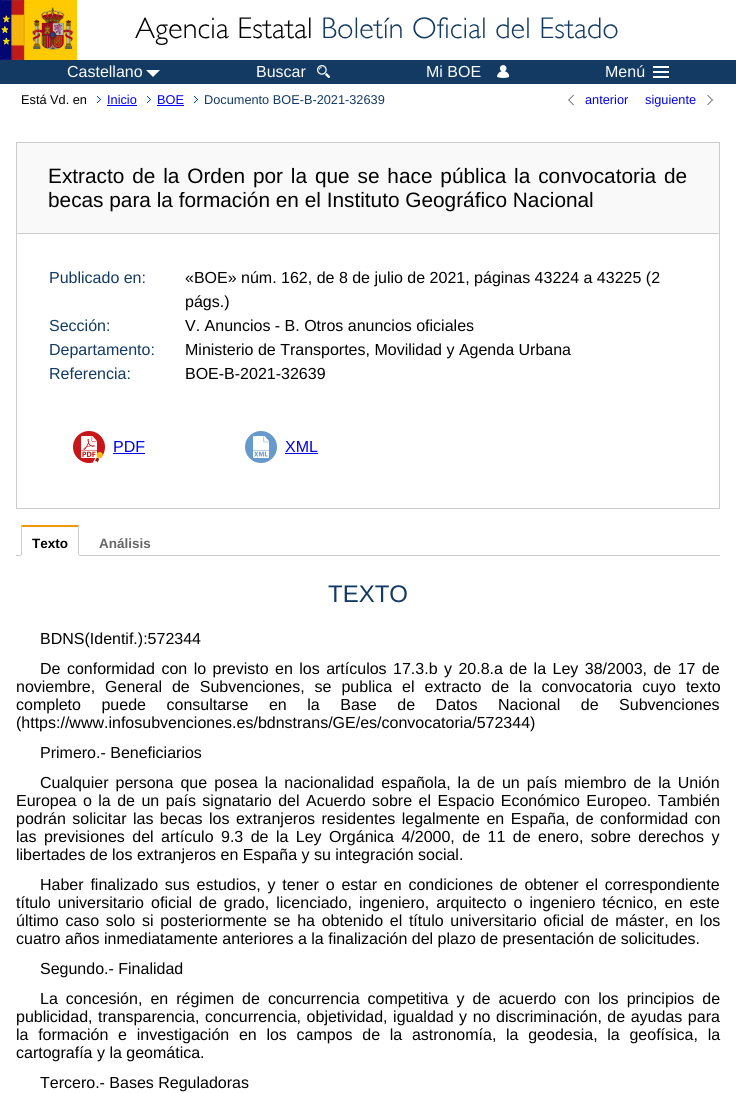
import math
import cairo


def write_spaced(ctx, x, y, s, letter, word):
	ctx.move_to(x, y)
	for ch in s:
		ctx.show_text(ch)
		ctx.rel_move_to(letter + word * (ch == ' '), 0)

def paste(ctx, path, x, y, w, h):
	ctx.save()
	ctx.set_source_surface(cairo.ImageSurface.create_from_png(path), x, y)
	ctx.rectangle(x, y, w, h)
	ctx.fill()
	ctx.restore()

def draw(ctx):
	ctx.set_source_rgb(1, 1, 1)
	ctx.paint()
	paste(ctx, 'media/1.png', 0, 0, 77, 60)
	paste(ctx, 'media/2.png', 135, 17, 483, 28)
	ctx.set_source_rgb(0.071, 0.227, 0.388)
	ctx.rectangle(0, 60, 736, 24)
	ctx.fill()
	ctx.select_font_face('Liberation Sans')
	ctx.set_font_size(16)
	ctx.set_source_rgb(1, 1, 1)
	ctx.move_to(67, 77)
	ctx.show_text('Castellano')
	ctx.new_path()
	ctx.move_to(146, 70)
	ctx.line_to(160, 70)
	ctx.line_to(153, 77)
	ctx.close_path()
	ctx.fill()
	ctx.move_to(256, 77)
	ctx.show_text('Buscar')
	paste(ctx, 'media/3.png', 317, 65, 13, 13)
	ctx.move_to(426, 77)
	ctx.show_text('Mi BOE')
	paste(ctx, 'media/4.png', 497, 65, 12, 13)
	ctx.move_to(605, 77)
	ctx.show_text('Menú')
	ctx.rectangle(653, 66, 16, 2)
	ctx.rectangle(653, 71, 16, 2)
	ctx.rectangle(653, 76, 16, 2)
	ctx.fill()
	paste(ctx, 'media/5.png', 97, 96, 4, 7)
	ctx.set_font_size(12.75)
	ctx.set_source_rgb(0, 0, 0)
	ctx.move_to(21, 104)
	ctx.show_text('Está Vd. en')
	ctx.set_source_rgb(0, 0, 1)
	ctx.move_to(107, 104)
	ctx.show_text('Inicio')
	ctx.rectangle(107, 105, 30, 1)
	ctx.fill()
	paste(ctx, 'media/5.png', 147, 96, 4, 7)
	ctx.move_to(157, 104)
	ctx.show_text('BOE')
	ctx.rectangle(157, 105, 27, 1)
	ctx.fill()
	paste(ctx, 'media/5.png', 194, 96, 4, 7)
	ctx.set_source_rgb(0.071, 0.227, 0.388)
	ctx.move_to(204, 104)
	ctx.show_text('Documento BOE-B-2021-32639')
	paste(ctx, 'media/6.png', 568, 95, 6, 10)
	ctx.set_source_rgb(0, 0, 0.933)
	ctx.move_to(585, 104)
	ctx.show_text('anterior')
	ctx.move_to(645, 104)
	ctx.show_text('siguiente')
	paste(ctx, 'media/7.png', 707, 95, 6, 10)
	ctx.rectangle(16.5, 142.5, 703, 366)
	ctx.set_source_rgb(0.8, 0.8, 0.8)
	ctx.set_line_width(1)
	ctx.stroke()
	ctx.set_source_rgb(0.976, 0.976, 0.976)
	ctx.rectangle(17, 143, 702, 90)
	ctx.fill()
	ctx.set_source_rgb(0.8, 0.8, 0.8)
	ctx.rectangle(17, 233, 702, 1)
	ctx.fill()
	ctx.set_font_size(20.8)
	ctx.set_source_rgb(0, 0, 0)
	write_spaced(ctx, 48, 183, 'Extracto de la Orden por la que se hace pública la convocatoria de', 0, 2.1)
	ctx.move_to(48, 207)
	ctx.show_text('becas para la formación en el Instituto Geográfico Nacional')
	ctx.set_font_size(16)
	ctx.set_source_rgb(0.071, 0.227, 0.388)
	ctx.move_to(49, 283)
	ctx.show_text('Publicado en:')
	ctx.set_source_rgb(0, 0, 0)
	ctx.move_to(185, 283)
	ctx.show_text('«BOE» núm. 162, de 8 de julio de 2021, páginas 43224 a 43225 (2')
	ctx.move_to(185, 307)
	ctx.show_text('págs.)')
	ctx.set_source_rgb(0.071, 0.227, 0.388)
	ctx.move_to(49, 331)
	ctx.show_text('Sección:')
	ctx.set_source_rgb(0, 0, 0)
	ctx.move_to(185, 331)
	ctx.show_text('V. Anuncios - B. Otros anuncios oficiales')
	ctx.set_source_rgb(0.071, 0.227, 0.388)
	ctx.move_to(49, 355)
	ctx.show_text('Departamento:')
	ctx.set_source_rgb(0, 0, 0)
	ctx.move_to(185, 355)
	ctx.show_text('Ministerio de Transportes, Movilidad y Agenda Urbana')
	ctx.set_source_rgb(0.071, 0.227, 0.388)
	ctx.move_to(49, 379)
	ctx.show_text('Referencia:')
	ctx.set_source_rgb(0, 0, 0)
	ctx.move_to(185, 379)
	ctx.show_text('BOE-B-2021-32639')
	paste(ctx, 'media/8.png', 73, 431, 32, 32)
	ctx.set_source_rgb(0, 0, 0.933)
	ctx.move_to(113, 452)
	ctx.show_text('PDF')
	ctx.rectangle(113, 453, 32, 1)
	ctx.fill()
	paste(ctx, 'media/9.png', 245, 431, 32, 32)
	ctx.move_to(285, 452)
	ctx.show_text('XML')
	ctx.rectangle(285, 453, 33, 1)
	ctx.fill()
	ctx.set_source_rgb(0.8, 0.8, 0.8)
	ctx.rectangle(16, 555, 704, 1)
	ctx.fill()
	ctx.set_source_rgb(1, 1, 1)
	ctx.rectangle(21, 555, 58, 1)
	ctx.fill()
	ctx.set_source_rgb(0.949, 0.592, 0.031)
	ctx.new_path()
	ctx.move_to(21, 525)
	ctx.line_to(79, 525)
	ctx.line_to(78, 527)
	ctx.line_to(22, 527)
	ctx.close_path()
	ctx.fill()
	ctx.set_source_rgb(0.8, 0.8, 0.8)
	ctx.new_path()
	ctx.move_to(79, 525)
	ctx.line_to(79, 555)
	ctx.line_to(78, 555)
	ctx.line_to(78, 527)
	ctx.close_path()
	ctx.move_to(21, 555)
	ctx.line_to(21, 525)
	ctx.line_to(22, 527)
	ctx.line_to(22, 555)
	ctx.close_path()
	ctx.fill()
	ctx.select_font_face('Liberation Sans', cairo.FONT_SLANT_NORMAL, cairo.FONT_WEIGHT_BOLD)
	ctx.set_font_size(13.5)
	ctx.set_source_rgb(0, 0, 0)
	ctx.move_to(32, 548)
	ctx.show_text('Texto')
	ctx.set_source_rgb(0.4, 0.4, 0.4)
	ctx.move_to(99, 548)
	ctx.show_text('Análisis')
	ctx.select_font_face('Liberation Sans')
	ctx.set_font_size(24)
	ctx.set_source_rgb(0.071, 0.227, 0.388)
	ctx.move_to(328, 602)
	ctx.show_text('TEXTO')
	ctx.set_font_size(16)
	ctx.set_source_rgb(0, 0, 0)
	ctx.move_to(40, 644)
	ctx.show_text('BDNS(Identif.):572344')
	write_spaced(ctx, 40, 674, 'De conformidad con lo previsto en los artículos 17.3.b y 20.8.a de la Ley 38/2003, de 17 de', 0, 2)
	write_spaced(ctx, 16, 692, 'noviembre, General de Subvenciones, se publica el extracto de la convocatoria cuyo texto', 0, 5.5)
	write_spaced(ctx, 16, 710, 'completo puede consultarse en la Base de Datos Nacional de Subvenciones', 0, 16.1)
	ctx.move_to(16, 728)
	ctx.show_text('(https://www.infosubvenciones.es/bdnstrans/GE/es/convocatoria/572344)')
	ctx.move_to(40, 758)
	ctx.show_text('Primero.- Beneficiarios')
	write_spaced(ctx, 40, 788, 'Cualquier persona que posea la nacionalidad española, la de un país miembro de la Unión', 0, 2.6)
	write_spaced(ctx, 16, 806, 'Europea o la de un país signatario del Acuerdo sobre el Espacio Económico Europeo. También', 0, 2)
	write_spaced(ctx, 16, 824, 'podrán solicitar las becas los extranjeros residentes legalmente en España, de conformidad con', 0, 2)
	write_spaced(ctx, 16, 842, 'las previsiones del artículo 9.3 de la Ley Orgánica 4/2000, de 11 de enero, sobre derechos y', 0, 3)
	ctx.move_to(16, 860)
	ctx.show_text('libertades de los extranjeros en España y su integración social.')
	write_spaced(ctx, 40, 890, 'Haber finalizado sus estudios, y tener o estar en condiciones de obtener el correspondiente', 0, 2.4)
	write_spaced(ctx, 16, 908, 'título universitario oficial de grado, licenciado, ingeniero, arquitecto o ingeniero técnico, en este', 0, 2.6)
	write_spaced(ctx, 16, 926, 'último caso solo si posteriormente se ha obtenido el título universitario oficial de máster, en los', 0, 2.25)
	ctx.move_to(16, 944)
	ctx.show_text('cuatro años inmediatamente anteriores a la finalización del plazo de presentación de solicitudes.')
	ctx.move_to(40, 974)
	ctx.show_text('Segundo.- Finalidad')
	write_spaced(ctx, 40, 1004, 'La concesión, en régimen de concurrencia competitiva y de acuerdo con los principios de', 0, 3.6)
	write_spaced(ctx, 16, 1022, 'publicidad, transparencia, concurrencia, objetividad, igualdad y no discriminación, de ayudas para', 0, 1.1)
	write_spaced(ctx, 16, 1040, 'la formación e investigación en los campos de la astronomía, la geodesia, la geofísica, la', 0, 5.25)
	ctx.move_to(16, 1058)
	ctx.show_text('cartografía y la geomática.')
	ctx.move_to(40, 1088)
	ctx.show_text('Tercero.- Bases Reguladoras')


surface = cairo.ImageSurface(cairo.FORMAT_RGB24, 736, 1093)
ctx = cairo.Context(surface)
options = cairo.FontOptions()
options.set_hint_metrics(cairo.HINT_METRICS_OFF)
options.set_hint_style(cairo.HINT_STYLE_NONE)
ctx.set_font_options(options)
ctx.set_miter_limit(4)
draw(ctx)
surface.write_to_png('image.png')
